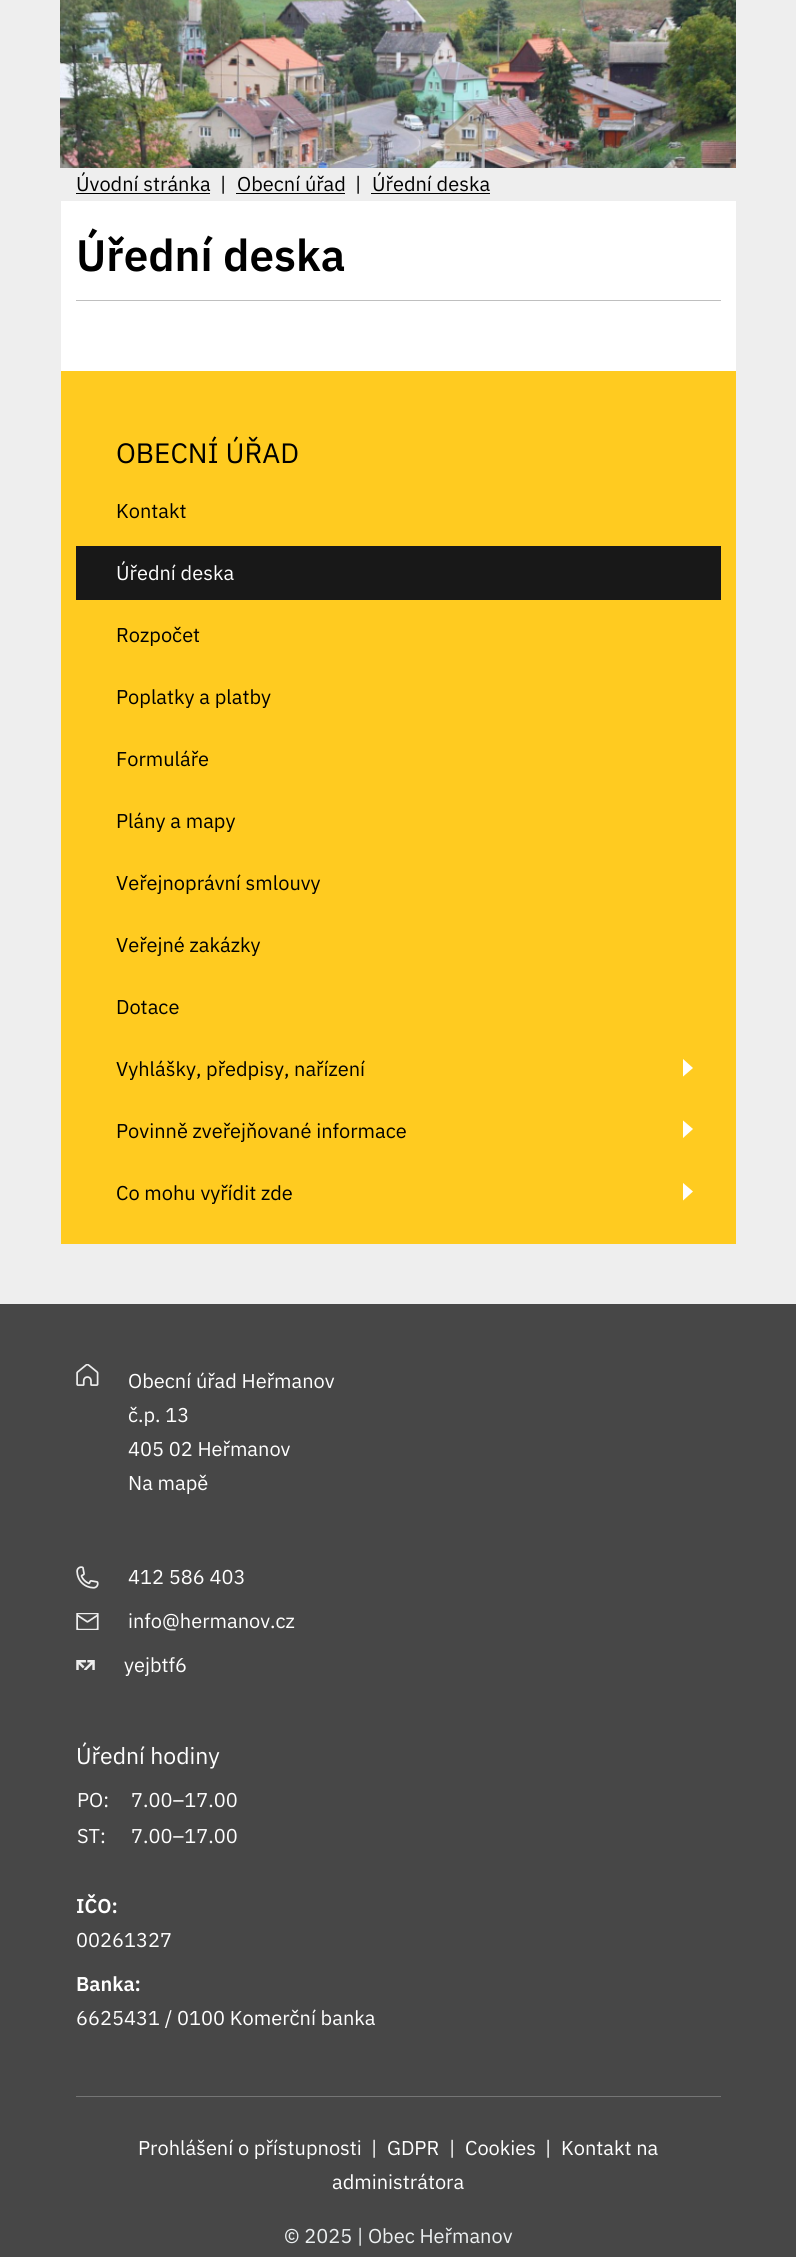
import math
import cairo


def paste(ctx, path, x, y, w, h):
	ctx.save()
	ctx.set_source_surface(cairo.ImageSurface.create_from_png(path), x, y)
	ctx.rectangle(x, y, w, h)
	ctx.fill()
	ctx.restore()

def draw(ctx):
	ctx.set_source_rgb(0.933, 0.933, 0.933)
	ctx.paint()
	paste(ctx, 'media/1.png', 60, 0, 676, 168)
	ctx.select_font_face('IBM Plex Sans')
	ctx.set_font_size(20)
	ctx.set_source_rgb(0, 0, 0)
	ctx.move_to(76, 191)
	ctx.show_text('Úvodní stránka')
	ctx.rectangle(76, 193, 134, 1)
	ctx.fill()
	ctx.move_to(220, 191)
	ctx.show_text('|')
	ctx.move_to(237, 191)
	ctx.show_text('Obecní úřad')
	ctx.rectangle(236, 193, 109, 1)
	ctx.fill()
	ctx.move_to(355, 191)
	ctx.show_text('|')
	ctx.move_to(372, 191)
	ctx.show_text('Úřední deska')
	ctx.rectangle(371, 193, 119, 1)
	ctx.fill()
	ctx.set_source_rgb(1, 0.796, 0.125)
	ctx.rectangle(61, 371, 675, 873)
	ctx.fill()
	ctx.set_source_rgb(1, 1, 1)
	ctx.rectangle(61, 201, 675, 170)
	ctx.fill()
	ctx.select_font_face('IBM Plex Sans SemiBold')
	ctx.set_font_size(44)
	ctx.set_source_rgb(0, 0, 0)
	ctx.move_to(76, 271)
	ctx.show_text('Úřední deska')
	ctx.set_source_rgb(0.749, 0.749, 0.749)
	ctx.rectangle(76, 300, 645, 1)
	ctx.fill()
	ctx.select_font_face('IBM Plex Sans')
	ctx.set_font_size(28)
	ctx.set_source_rgb(0, 0, 0)
	ctx.move_to(116, 463)
	ctx.show_text('OBECNÍ ÚŘAD')
	ctx.set_font_size(20)
	ctx.move_to(116, 518)
	ctx.show_text('Kontakt')
	ctx.set_source_rgb(0.094, 0.094, 0.094)
	ctx.rectangle(76, 546, 645, 54)
	ctx.fill()
	ctx.set_source_rgb(1, 1, 1)
	ctx.move_to(116, 580)
	ctx.show_text('Úřední deska')
	ctx.set_source_rgb(0, 0, 0)
	for x, y, s in [
		(116, 642, 'Rozpočet'),
		(116, 704, 'Poplatky a platby'),
		(116, 766, 'Formuláře'),
		(116, 828, 'Plány a mapy'),
		(116, 890, 'Veřejnoprávní smlouvy'),
		(116, 952, 'Veřejné zakázky'),
		(116, 1014, 'Dotace'),
		(116, 1076, 'Vyhlášky, předpisy, nařízení'),
	]:
		ctx.move_to(x, y)
		ctx.show_text(s)
	ctx.save()
	ctx.rectangle(683, 1059, 10, 19)
	ctx.clip()
	ctx.set_source_rgb(1, 1, 1)
	ctx.set_fill_rule(cairo.FILL_RULE_EVEN_ODD)
	ctx.new_path()
	ctx.move_to(693, 1068)
	ctx.line_to(682.5, 1077)
	ctx.line_to(682.5, 1058.5)
	ctx.close_path()
	ctx.fill()
	ctx.restore()
	ctx.move_to(116, 1138)
	ctx.show_text('Povinně zveřejňované informace')
	ctx.save()
	ctx.rectangle(683, 1120, 10, 19)
	ctx.clip()
	ctx.set_source_rgb(1, 1, 1)
	ctx.set_fill_rule(cairo.FILL_RULE_EVEN_ODD)
	ctx.new_path()
	ctx.move_to(693, 1129)
	ctx.line_to(682.5, 1138.5)
	ctx.line_to(682.5, 1120)
	ctx.close_path()
	ctx.fill()
	ctx.restore()
	ctx.move_to(116, 1200)
	ctx.show_text('Co mohu vyřídit zde')
	ctx.save()
	ctx.rectangle(683, 1183, 10, 18)
	ctx.clip()
	ctx.set_source_rgb(1, 1, 1)
	ctx.set_fill_rule(cairo.FILL_RULE_EVEN_ODD)
	ctx.new_path()
	ctx.move_to(693, 1191.5)
	ctx.line_to(682.5, 1201)
	ctx.line_to(682.5, 1182.5)
	ctx.close_path()
	ctx.fill()
	ctx.restore()
	ctx.set_source_rgb(0.278, 0.278, 0.278)
	ctx.rectangle(0, 1304, 796, 953)
	ctx.fill()
	paste(ctx, 'media/2.png', 76, 1364, 23, 22)
	ctx.set_source_rgb(1, 1, 1)
	for x, y, s in [
		(128, 1388, 'Obecní úřad Heřmanov'),
		(128, 1422, 'č.p. 13'),
		(128, 1456, '405 02 Heřmanov'),
		(128, 1490, 'Na mapě'),
	]:
		ctx.move_to(x, y)
		ctx.show_text(s)
	paste(ctx, 'media/3.png', 76, 1566, 23, 23)
	ctx.move_to(128, 1584)
	ctx.show_text('412 586 403')
	paste(ctx, 'media/4.png', 76, 1613, 23, 17)
	ctx.move_to(128, 1628)
	ctx.show_text('info@hermanov.cz')
	paste(ctx, 'media/5.png', 76, 1660, 19, 10)
	ctx.move_to(124, 1672)
	ctx.show_text('yejbtf6')
	ctx.set_font_size(23)
	ctx.move_to(76, 1764)
	ctx.show_text('Úřední hodiny')
	ctx.set_font_size(20)
	for x, y, s in [
		(77, 1807, 'PO:'),
		(131, 1807, '7.00–17.00'),
		(77, 1843, 'ST:'),
		(131, 1843, '7.00–17.00'),
	]:
		ctx.move_to(x, y)
		ctx.show_text(s)
	ctx.select_font_face('IBM Plex Sans SemiBold')
	ctx.move_to(76, 1913)
	ctx.show_text('IČO:')
	ctx.select_font_face('IBM Plex Sans')
	ctx.move_to(76, 1947)
	ctx.show_text('00261327')
	ctx.select_font_face('IBM Plex Sans SemiBold')
	ctx.move_to(76, 1991)
	ctx.show_text('Banka:')
	ctx.select_font_face('IBM Plex Sans')
	ctx.move_to(76, 2025)
	ctx.show_text('6625431 / 0100 Komerční banka')
	ctx.set_source_rgb(0.459, 0.459, 0.459)
	ctx.rectangle(76, 2096, 645, 1)
	ctx.fill()
	ctx.set_source_rgb(1, 1, 1)
	for x, y, s in [
		(138, 2155, 'Prohlášení o přístupnosti'),
		(371, 2155, '|'),
		(387, 2155, 'GDPR'),
		(449, 2155, '|'),
		(465, 2155, 'Cookies'),
		(545, 2155, '|'),
		(561, 2155, 'Kontakt na'),
		(332, 2189, 'administrátora'),
	]:
		ctx.move_to(x, y)
		ctx.show_text(s)
	ctx.set_source_rgb(0.925, 0.941, 0.945)
	ctx.move_to(284, 2243)
	ctx.show_text('© 2025 | Obec Heřmanov')


surface = cairo.ImageSurface(cairo.FORMAT_RGB24, 796, 2257)
ctx = cairo.Context(surface)
options = cairo.FontOptions()
options.set_hint_metrics(cairo.HINT_METRICS_OFF)
options.set_hint_style(cairo.HINT_STYLE_NONE)
ctx.set_font_options(options)
ctx.set_miter_limit(4)
draw(ctx)
surface.write_to_png('image.png')
